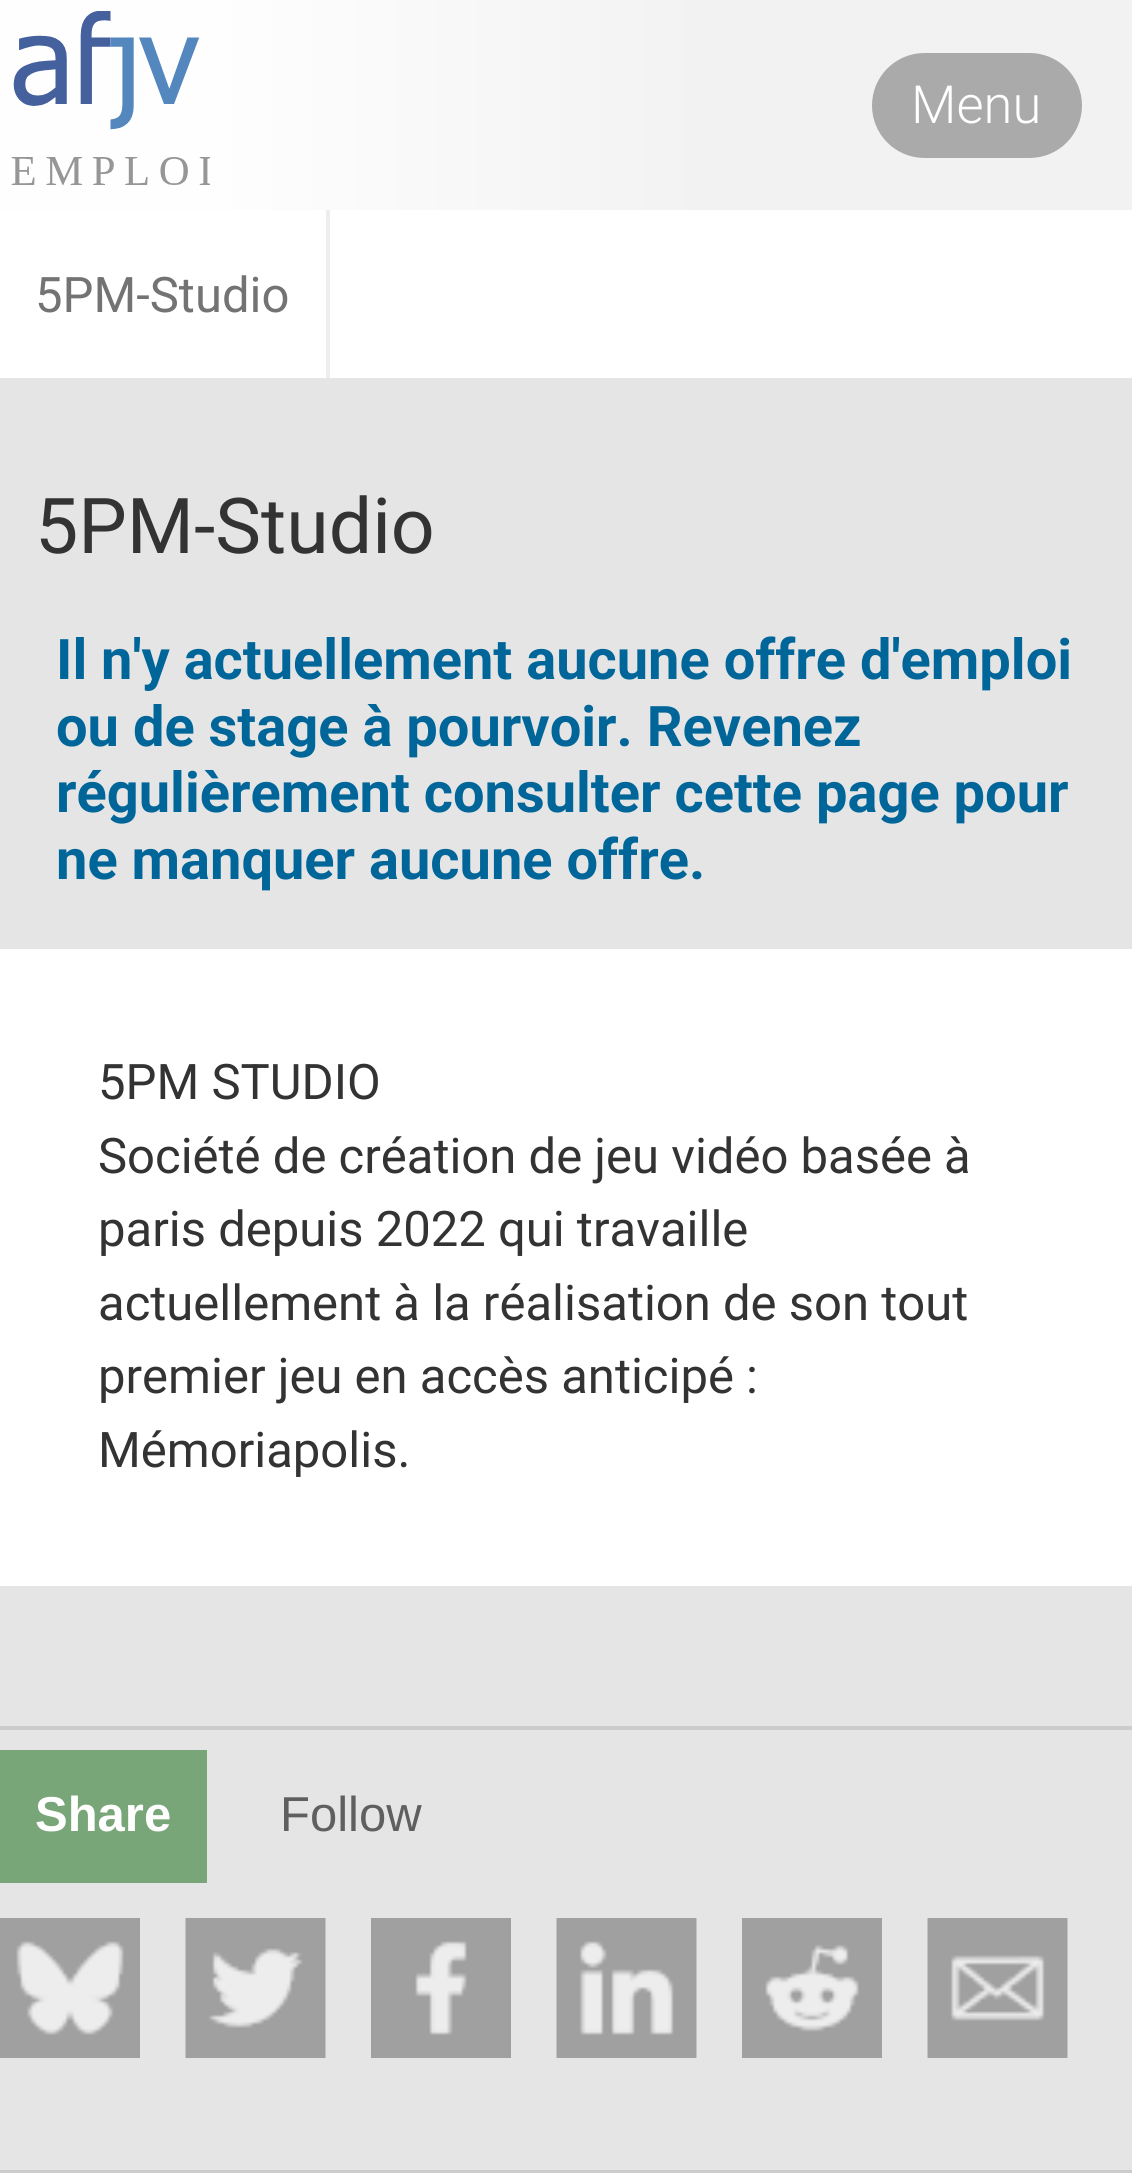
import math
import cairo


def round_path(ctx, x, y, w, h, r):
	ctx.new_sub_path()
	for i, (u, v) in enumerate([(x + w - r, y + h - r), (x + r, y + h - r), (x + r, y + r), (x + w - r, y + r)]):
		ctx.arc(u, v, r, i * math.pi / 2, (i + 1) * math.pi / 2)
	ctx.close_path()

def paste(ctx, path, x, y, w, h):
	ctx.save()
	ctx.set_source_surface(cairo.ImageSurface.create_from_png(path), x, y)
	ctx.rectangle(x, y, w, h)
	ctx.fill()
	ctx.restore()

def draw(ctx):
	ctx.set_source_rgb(0.898, 0.898, 0.898)
	ctx.paint()
	ctx.set_source_rgb(0.949, 0.949, 0.949)
	ctx.rectangle(704, 0, 428, 210)
	ctx.fill()
	gradient = cairo.LinearGradient(0, 105, 704, 105)
	gradient.add_color_stop_rgba(0, 0.996, 0.996, 0.996, 1)
	gradient.add_color_stop_rgba(0.3, 0.996, 0.996, 0.996, 1)
	gradient.add_color_stop_rgba(1, 0.949, 0.949, 0.949, 1)
	ctx.set_source(gradient)
	ctx.rectangle(0, 0, 704, 210)
	ctx.fill()
	paste(ctx, 'media/1.png', 11, 11, 199, 174)
	ctx.set_source_rgb(0.667, 0.667, 0.667)
	round_path(ctx, 872, 53, 210, 105, 52.5)
	ctx.fill()
	ctx.select_font_face('Roboto Light')
	ctx.set_font_size(52.5)
	ctx.set_source_rgb(1, 1, 1)
	ctx.move_to(911, 123)
	ctx.show_text('Menu')
	ctx.rectangle(0, 210, 1132, 168)
	ctx.fill()
	ctx.set_source_rgb(0.933, 0.933, 0.933)
	ctx.rectangle(326, 210, 4, 168)
	ctx.fill()
	ctx.select_font_face('Roboto')
	ctx.set_font_size(49)
	ctx.set_source_rgb(0.451, 0.451, 0.451)
	ctx.move_to(35, 312)
	ctx.show_text('5PM-Studio')
	ctx.set_font_size(77)
	ctx.set_source_rgb(0.2, 0.2, 0.2)
	ctx.move_to(35, 553)
	ctx.show_text('5PM-Studio')
	ctx.select_font_face('Roboto', cairo.FONT_SLANT_NORMAL, cairo.FONT_WEIGHT_BOLD)
	ctx.set_font_size(56)
	ctx.set_source_rgb(0, 0.4, 0.6)
	for x, y, s in [
		(56, 679, 'Il n\'y actuellement aucune offre d\'emploi'),
		(56, 746, 'ou de stage à pourvoir. Revenez'),
		(56, 812, 'régulièrement consulter cette page pour'),
		(56, 879, 'ne manquer aucune offre.'),
	]:
		ctx.move_to(x, y)
		ctx.show_text(s)
	ctx.set_source_rgb(1, 1, 1)
	ctx.rectangle(0, 949, 1132, 637)
	ctx.fill()
	ctx.select_font_face('Roboto')
	ctx.set_font_size(49)
	ctx.set_source_rgb(0.2, 0.2, 0.2)
	for x, y, s in [
		(98, 1099, '5PM STUDIO'),
		(98, 1173, 'Société de création de jeu vidéo basée à'),
		(98, 1246, 'paris depuis 2022 qui travaille'),
		(98, 1320, 'actuellement à la réalisation de son tout'),
		(98, 1393, 'premier jeu en accès anticipé :'),
		(98, 1467, 'Mémoriapolis.'),
	]:
		ctx.move_to(x, y)
		ctx.show_text(s)
	ctx.set_source_rgb(0.8, 0.8, 0.8)
	ctx.rectangle(0, 1726, 1132, 4)
	ctx.fill()
	ctx.set_source_rgb(0.475, 0.651, 0.475)
	ctx.rectangle(0, 1750, 207, 133)
	ctx.fill()
	ctx.select_font_face('Liberation Sans', cairo.FONT_SLANT_NORMAL, cairo.FONT_WEIGHT_BOLD)
	ctx.set_source_rgb(1, 1, 1)
	ctx.move_to(35, 1831)
	ctx.show_text('Share')
	paste(ctx, 'media/2.png', 0, 1918, 140, 140)
	paste(ctx, 'media/3.png', 185, 1918, 141, 140)
	paste(ctx, 'media/4.png', 371, 1918, 140, 140)
	paste(ctx, 'media/5.png', 556, 1918, 141, 140)
	paste(ctx, 'media/6.png', 742, 1918, 140, 140)
	paste(ctx, 'media/7.png', 927, 1918, 141, 140)
	ctx.select_font_face('Liberation Sans')
	ctx.set_source_rgb(0.373, 0.373, 0.373)
	ctx.move_to(280, 1831)
	ctx.show_text('Follow')
	ctx.set_source_rgb(0.8, 0.8, 0.8)
	ctx.rectangle(0, 2170, 1132, 3)
	ctx.fill()


surface = cairo.ImageSurface(cairo.FORMAT_RGB24, 1132, 2173)
ctx = cairo.Context(surface)
options = cairo.FontOptions()
options.set_hint_metrics(cairo.HINT_METRICS_OFF)
options.set_hint_style(cairo.HINT_STYLE_NONE)
ctx.set_font_options(options)
ctx.set_miter_limit(4)
draw(ctx)
surface.write_to_png('image.png')
